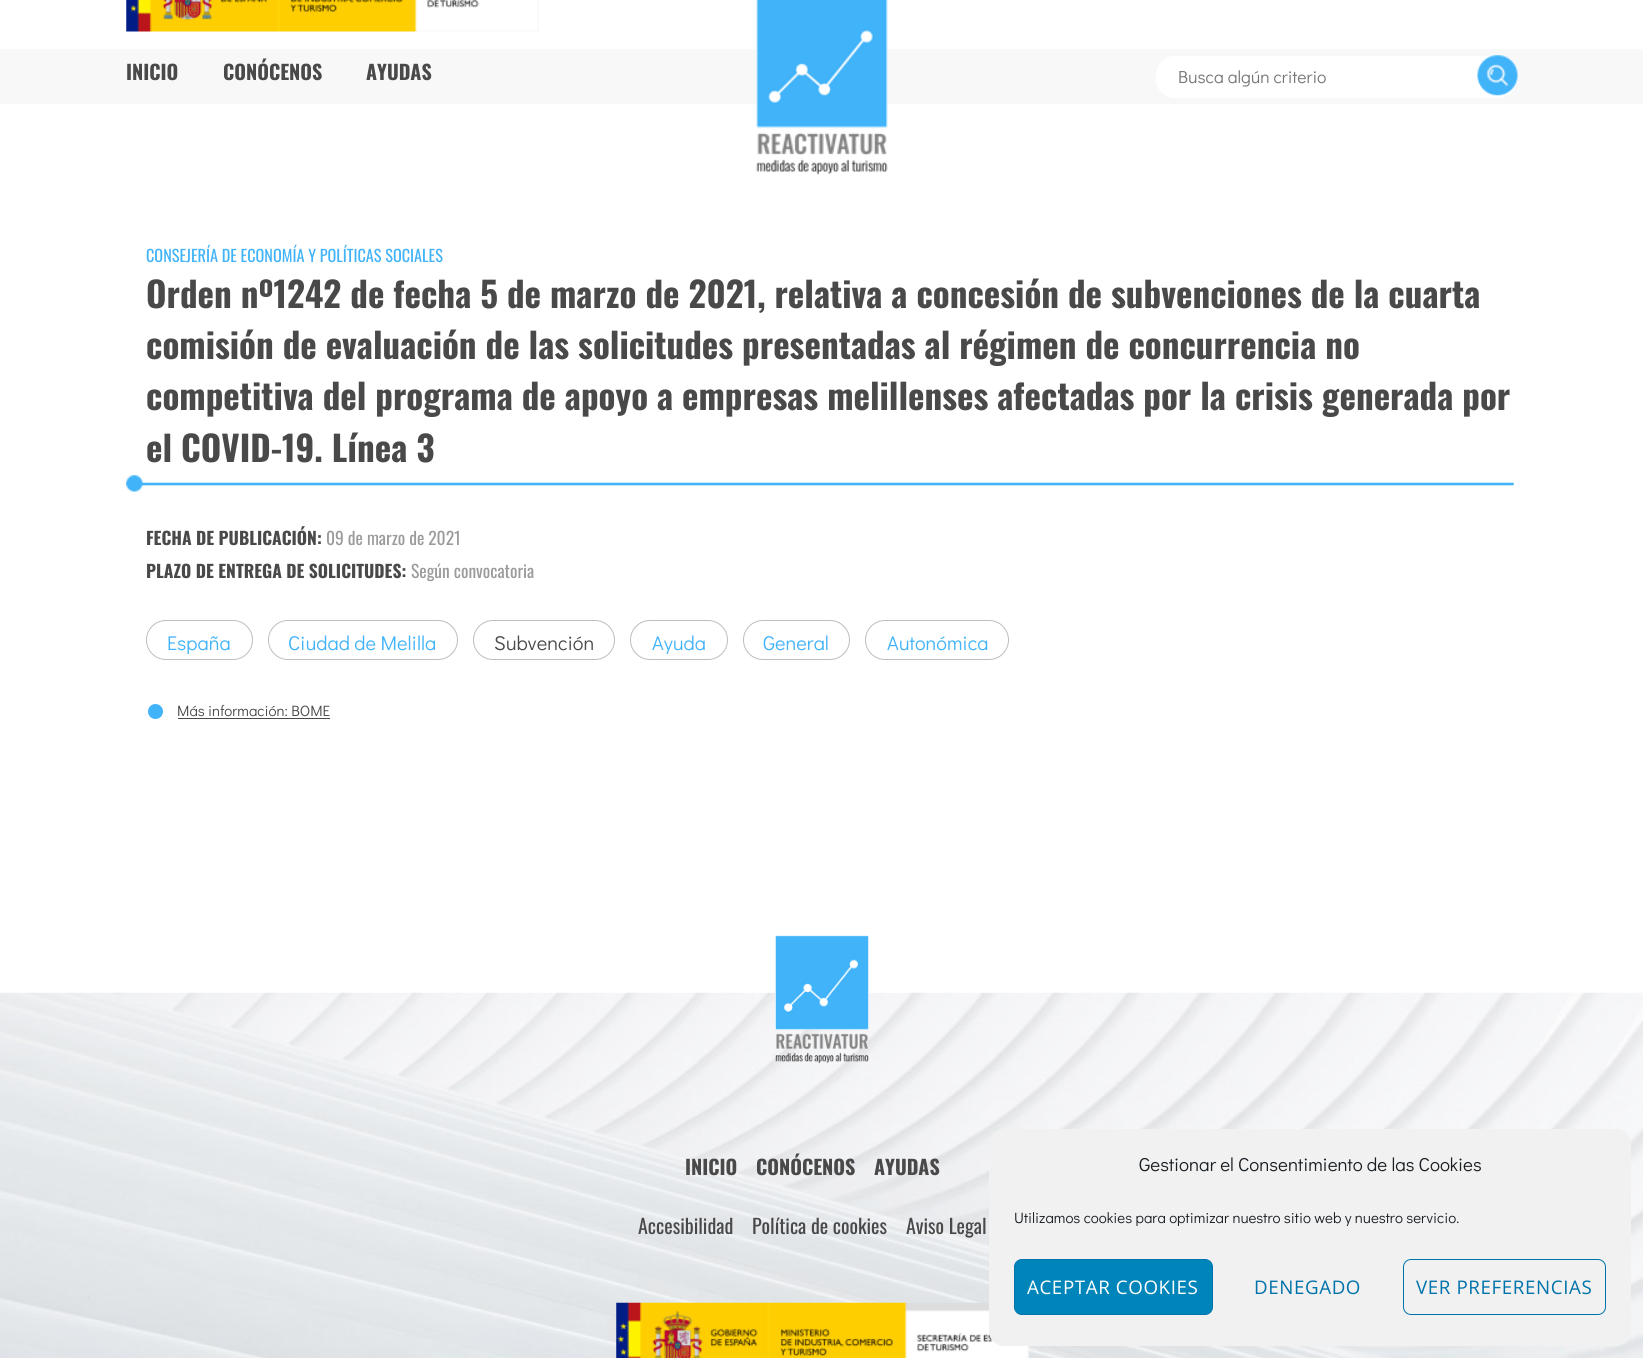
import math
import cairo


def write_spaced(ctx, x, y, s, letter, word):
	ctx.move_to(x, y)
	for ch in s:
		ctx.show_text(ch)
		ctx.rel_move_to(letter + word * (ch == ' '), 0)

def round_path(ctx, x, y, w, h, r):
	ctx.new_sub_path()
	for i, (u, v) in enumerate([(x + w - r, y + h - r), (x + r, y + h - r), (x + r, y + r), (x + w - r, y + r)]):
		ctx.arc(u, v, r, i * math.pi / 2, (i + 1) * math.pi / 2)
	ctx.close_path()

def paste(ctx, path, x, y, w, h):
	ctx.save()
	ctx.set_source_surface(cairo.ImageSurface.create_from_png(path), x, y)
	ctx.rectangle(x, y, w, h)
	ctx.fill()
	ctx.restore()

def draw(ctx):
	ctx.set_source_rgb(1, 1, 1)
	ctx.paint()
	paste(ctx, 'media/1.png', 126, 0, 413, 32)
	ctx.set_source_rgb(0.969, 0.969, 0.969)
	ctx.rectangle(0, 49, 1643, 55)
	ctx.fill()
	paste(ctx, 'media/2.png', 756, 0, 132, 175)
	ctx.select_font_face('Oswald', cairo.FONT_SLANT_NORMAL, cairo.FONT_WEIGHT_BOLD)
	ctx.set_font_size(20)
	ctx.set_source_rgb(0.286, 0.286, 0.286)
	for x, y, s in [
		(126, 80, 'INICIO'),
		(223, 80, 'CONÓCENOS'),
		(366, 80, 'AYUDAS'),
	]:
		ctx.move_to(x, y)
		ctx.show_text(s)
	ctx.set_source_rgb(1, 1, 1)
	round_path(ctx, 1155.5, 55.5, 362, 43, 19.5)
	ctx.fill_preserve()
	ctx.set_source_rgb(0.969, 0.969, 0.969)
	ctx.set_line_width(1)
	ctx.stroke()
	ctx.select_font_face('Didact Gothic')
	ctx.set_font_size(17.5)
	ctx.set_source_rgb(0.459, 0.459, 0.459)
	ctx.move_to(1178, 83)
	ctx.show_text('Busca algún criterio')
	paste(ctx, 'media/3.png', 1477, 55, 41, 41)
	ctx.select_font_face('Oswald')
	ctx.set_font_size(16.25)
	ctx.set_source_rgb(0.255, 0.702, 0.976)
	ctx.move_to(146, 262)
	ctx.show_text('CONSEJERÍA DE ECONOMÍA Y POLÍTICAS SOCIALES')
	ctx.select_font_face('Oswald', cairo.FONT_SLANT_NORMAL, cairo.FONT_WEIGHT_BOLD)
	ctx.set_font_size(35)
	ctx.set_source_rgb(0.286, 0.286, 0.286)
	for x, y, s in [
		(146, 308, 'Orden nº1242 de fecha 5 de marzo de 2021, relativa a concesión de subvenciones de la cuarta'),
		(146, 359, 'comisión de evaluación de las solicitudes presentadas al régimen de concurrencia no'),
		(146, 410, 'competitiva del programa de apoyo a empresas melillenses afectadas por la crisis generada por'),
		(146, 462, 'el COVID-19. Línea 3'),
	]:
		ctx.move_to(x, y)
		ctx.show_text(s)
	paste(ctx, 'media/4.png', 126, 475, 1388, 17)
	ctx.set_font_size(17.5)
	ctx.move_to(146, 545)
	ctx.show_text('FECHA DE PUBLICACIÓN:')
	ctx.select_font_face('Oswald')
	ctx.set_source_rgb(0.608, 0.608, 0.608)
	ctx.move_to(326, 545)
	ctx.show_text('09 de marzo de 2021')
	ctx.select_font_face('Oswald', cairo.FONT_SLANT_NORMAL, cairo.FONT_WEIGHT_BOLD)
	ctx.set_source_rgb(0.286, 0.286, 0.286)
	ctx.move_to(146, 578)
	ctx.show_text('PLAZO DE ENTREGA DE SOLICITUDES:')
	ctx.select_font_face('Oswald')
	ctx.set_source_rgb(0.608, 0.608, 0.608)
	ctx.move_to(411, 578)
	ctx.show_text('Según convocatoria')
	round_path(ctx, 146.5, 620.5, 106, 39, 19.5)
	ctx.set_source_rgb(0.745, 0.745, 0.745)
	ctx.stroke()
	ctx.select_font_face('Didact Gothic')
	ctx.set_font_size(20)
	ctx.set_source_rgb(0.255, 0.702, 0.976)
	ctx.move_to(167, 650)
	ctx.show_text('España')
	round_path(ctx, 268.5, 620.5, 189, 39, 19.5)
	ctx.set_source_rgb(0.745, 0.745, 0.745)
	ctx.stroke()
	ctx.set_source_rgb(0.255, 0.702, 0.976)
	ctx.move_to(288, 650)
	ctx.show_text('Ciudad de Melilla')
	round_path(ctx, 473.5, 620.5, 141, 39, 19.5)
	ctx.set_source_rgb(0.745, 0.745, 0.745)
	ctx.stroke()
	ctx.set_source_rgb(0.286, 0.286, 0.286)
	ctx.move_to(494, 650)
	ctx.show_text('Subvención')
	round_path(ctx, 630.5, 620.5, 97, 39, 19.5)
	ctx.set_source_rgb(0.745, 0.745, 0.745)
	ctx.stroke()
	ctx.set_source_rgb(0.255, 0.702, 0.976)
	ctx.move_to(652, 650)
	ctx.show_text('Ayuda')
	round_path(ctx, 743.5, 620.5, 106, 39, 19.5)
	ctx.set_source_rgb(0.745, 0.745, 0.745)
	ctx.stroke()
	ctx.set_source_rgb(0.255, 0.702, 0.976)
	ctx.move_to(763, 650)
	ctx.show_text('General')
	round_path(ctx, 865.5, 620.5, 143, 39, 19.5)
	ctx.set_source_rgb(0.745, 0.745, 0.745)
	ctx.stroke()
	ctx.set_source_rgb(0.255, 0.702, 0.976)
	ctx.move_to(887, 650)
	ctx.show_text('Autonómica')
	ctx.new_path()
	ctx.arc(155.5, 711.5, 7.5, 0, 2 * math.pi)
	ctx.fill()
	ctx.set_font_size(15)
	ctx.set_source_rgb(0.286, 0.286, 0.286)
	ctx.move_to(177, 716)
	ctx.show_text('Más información: BOME')
	ctx.rectangle(178, 718, 152, 1)
	ctx.fill()
	paste(ctx, 'media/5.png', 0, 992, 1643, 366)
	paste(ctx, 'media/6.png', 775, 935, 94, 129)
	ctx.select_font_face('Oswald', cairo.FONT_SLANT_NORMAL, cairo.FONT_WEIGHT_BOLD)
	ctx.set_font_size(20)
	for x, y, s in [
		(685, 1175, 'INICIO'),
		(756, 1175, 'CONÓCENOS'),
		(874, 1175, 'AYUDAS'),
	]:
		ctx.move_to(x, y)
		ctx.show_text(s)
	ctx.select_font_face('Oswald')
	for x, y, s in [
		(638, 1234, 'Accesibilidad'),
		(752, 1234, 'Política de cookies'),
		(906, 1234, 'Aviso Legal'),
	]:
		ctx.move_to(x, y)
		ctx.show_text(s)
	paste(ctx, 'media/7.png', 616, 1302, 413, 56)
	ctx.set_source_rgb(0.945, 0.945, 0.945)
	round_path(ctx, 989, 1129, 642, 217, 15)
	ctx.fill()
	ctx.select_font_face('Didact Gothic')
	ctx.set_font_size(18.75)
	ctx.set_source_rgb(0.098, 0.118, 0.137)
	ctx.move_to(1139, 1171)
	ctx.show_text('Gestionar el Consentimiento de las Cookies')
	ctx.set_font_size(15)
	ctx.move_to(1014, 1223)
	ctx.show_text('Utilizamos cookies para optimizar nuestro sitio web y nuestro servicio.')
	ctx.set_source_rgb(0, 0.522, 0.729)
	round_path(ctx, 1014.5, 1259.5, 198, 55, 7.5)
	ctx.fill_preserve()
	ctx.set_source_rgb(0, 0.451, 0.667)
	ctx.stroke()
	ctx.select_font_face('Open Sans')
	ctx.set_font_size(18.75)
	ctx.set_source_rgb(1, 1, 1)
	write_spaced(ctx, 1027, 1294, 'ACEPTAR COOKIES', 0.6, 0)
	ctx.set_source_rgb(0, 0.451, 0.667)
	write_spaced(ctx, 1254, 1294, 'DENEGADO', 0.6, 0)
	round_path(ctx, 1403.5, 1259.5, 202, 55, 7.5)
	ctx.stroke()
	write_spaced(ctx, 1416, 1294, 'VER PREFERENCIAS', 0.6, 0)


surface = cairo.ImageSurface(cairo.FORMAT_RGB24, 1643, 1358)
ctx = cairo.Context(surface)
options = cairo.FontOptions()
options.set_hint_metrics(cairo.HINT_METRICS_OFF)
options.set_hint_style(cairo.HINT_STYLE_NONE)
ctx.set_font_options(options)
ctx.set_miter_limit(4)
draw(ctx)
surface.write_to_png('image.png')
